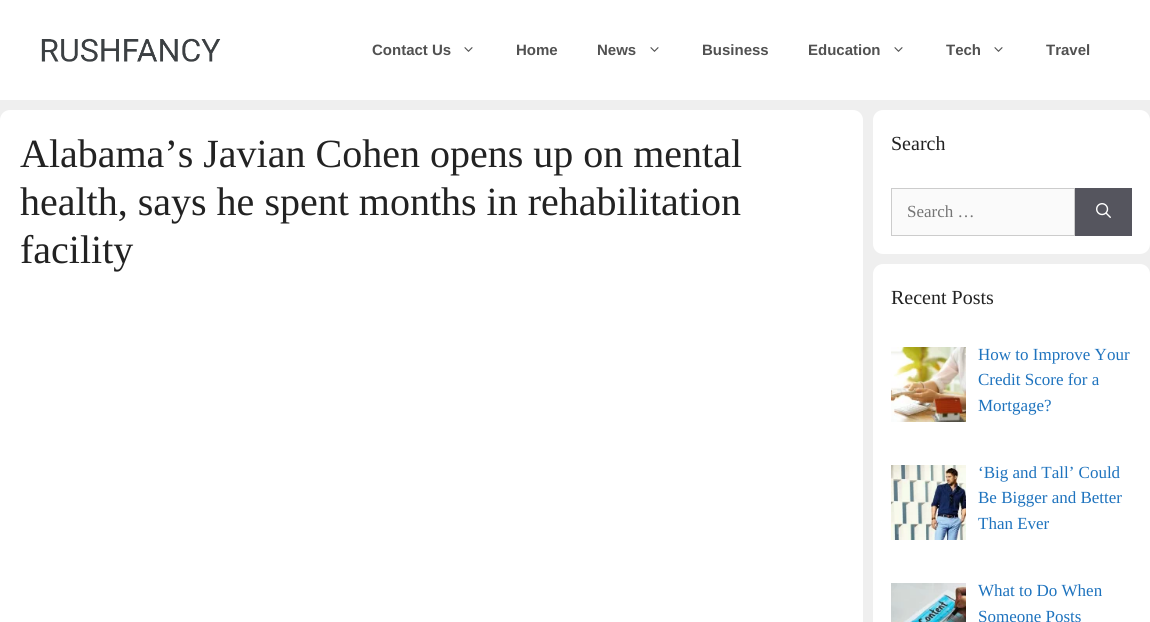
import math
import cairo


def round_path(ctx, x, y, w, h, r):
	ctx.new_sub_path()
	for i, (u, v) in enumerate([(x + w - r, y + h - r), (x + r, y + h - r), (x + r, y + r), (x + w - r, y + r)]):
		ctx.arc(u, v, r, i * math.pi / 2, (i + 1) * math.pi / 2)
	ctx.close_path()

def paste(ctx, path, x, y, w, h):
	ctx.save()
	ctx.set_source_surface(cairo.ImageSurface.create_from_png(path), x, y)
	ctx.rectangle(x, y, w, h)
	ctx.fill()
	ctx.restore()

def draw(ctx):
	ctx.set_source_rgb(0.937, 0.937, 0.937)
	ctx.paint()
	ctx.set_source_rgb(1, 1, 1)
	ctx.rectangle(0, 0, 1150, 100)
	ctx.fill()
	paste(ctx, 'media/1.png', 41, 38, 180, 24)
	ctx.select_font_face('Liberation Sans', cairo.FONT_SLANT_NORMAL, cairo.FONT_WEIGHT_BOLD)
	ctx.set_font_size(15)
	ctx.set_source_rgb(0.318, 0.318, 0.318)
	ctx.move_to(372, 55)
	ctx.show_text('Contact Us')
	paste(ctx, 'media/2.png', 464, 47, 9, 5)
	ctx.move_to(516, 55)
	ctx.show_text('Home')
	ctx.move_to(597, 55)
	ctx.show_text('News')
	paste(ctx, 'media/2.png', 650, 47, 9, 5)
	ctx.move_to(702, 55)
	ctx.show_text('Business')
	ctx.move_to(808, 55)
	ctx.show_text('Education')
	paste(ctx, 'media/2.png', 894, 47, 9, 5)
	ctx.move_to(946, 55)
	ctx.show_text('Tech')
	paste(ctx, 'media/2.png', 994, 47, 9, 5)
	ctx.move_to(1046, 55)
	ctx.show_text('Travel')
	ctx.set_source_rgb(1, 1, 1)
	round_path(ctx, 0, 110, 863, 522, 10)
	ctx.fill()
	ctx.select_font_face('Liberation Serif')
	ctx.set_font_size(40)
	ctx.set_source_rgb(0.133, 0.133, 0.133)
	for x, y, s in [
		(20, 167, 'Alabama’s Javian Cohen opens up on mental'),
		(20, 215, 'health, says he spent months in rehabilitation'),
		(20, 263, 'facility'),
	]:
		ctx.move_to(x, y)
		ctx.show_text(s)
	ctx.set_source_rgb(1, 1, 1)
	round_path(ctx, 873, 110, 277, 144, 10)
	ctx.fill()
	ctx.set_font_size(20)
	ctx.set_source_rgb(0.133, 0.133, 0.133)
	ctx.move_to(891, 150)
	ctx.show_text('Search')
	ctx.set_source_rgb(0.98, 0.98, 0.98)
	ctx.rectangle(891.5, 188.5, 183, 47)
	ctx.fill_preserve()
	ctx.set_source_rgb(0.8, 0.8, 0.8)
	ctx.set_line_width(1)
	ctx.stroke()
	ctx.set_font_size(17)
	ctx.set_source_rgb(0.459, 0.459, 0.459)
	ctx.move_to(907, 217)
	ctx.show_text('Search …')
	ctx.set_source_rgb(0.333, 0.333, 0.369)
	ctx.rectangle(1075, 188, 57, 48)
	ctx.fill()
	paste(ctx, 'media/3.png', 1096, 203, 15, 15)
	ctx.set_source_rgb(1, 1, 1)
	round_path(ctx, 873, 264, 277, 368, 10)
	ctx.fill()
	ctx.set_font_size(20)
	ctx.set_source_rgb(0.133, 0.133, 0.133)
	ctx.move_to(891, 304)
	ctx.show_text('Recent Posts')
	paste(ctx, 'media/4.png', 891, 347, 75, 75)
	ctx.set_font_size(17)
	ctx.set_source_rgb(0.118, 0.451, 0.745)
	for x, y, s in [
		(978, 360, 'How to Improve Your'),
		(978, 385, 'Credit Score for a'),
		(978, 411, 'Mortgage?'),
	]:
		ctx.move_to(x, y)
		ctx.show_text(s)
	paste(ctx, 'media/5.png', 891, 465, 75, 75)
	for x, y, s in [
		(978, 478, '‘Big and Tall’ Could'),
		(978, 503, 'Be Bigger and Better'),
		(978, 529, 'Than Ever'),
	]:
		ctx.move_to(x, y)
		ctx.show_text(s)
	paste(ctx, 'media/6.png', 891, 583, 75, 39)
	ctx.move_to(978, 596)
	ctx.show_text('What to Do When')
	ctx.move_to(978, 622)
	ctx.show_text('Someone Posts')


surface = cairo.ImageSurface(cairo.FORMAT_RGB24, 1150, 622)
ctx = cairo.Context(surface)
options = cairo.FontOptions()
options.set_hint_metrics(cairo.HINT_METRICS_OFF)
options.set_hint_style(cairo.HINT_STYLE_NONE)
ctx.set_font_options(options)
ctx.set_miter_limit(4)
draw(ctx)
surface.write_to_png('image.png')
